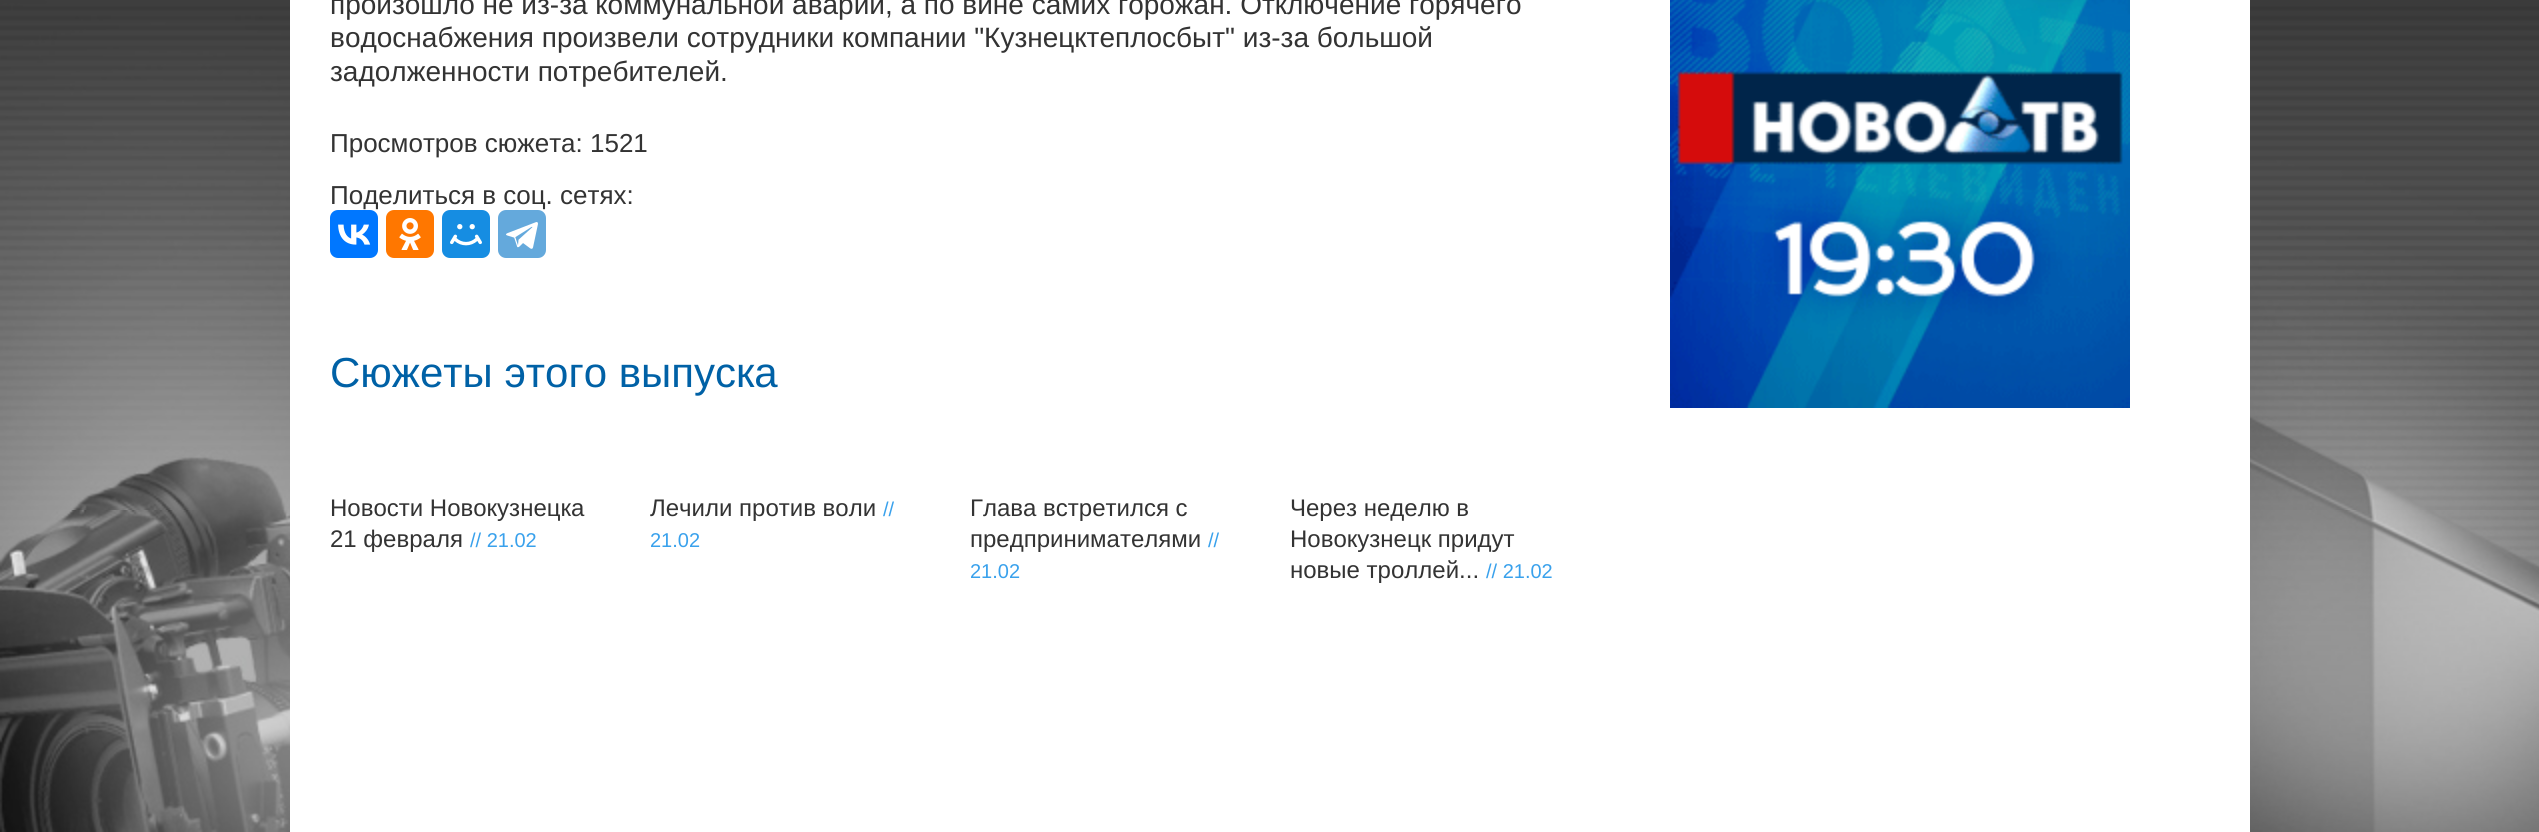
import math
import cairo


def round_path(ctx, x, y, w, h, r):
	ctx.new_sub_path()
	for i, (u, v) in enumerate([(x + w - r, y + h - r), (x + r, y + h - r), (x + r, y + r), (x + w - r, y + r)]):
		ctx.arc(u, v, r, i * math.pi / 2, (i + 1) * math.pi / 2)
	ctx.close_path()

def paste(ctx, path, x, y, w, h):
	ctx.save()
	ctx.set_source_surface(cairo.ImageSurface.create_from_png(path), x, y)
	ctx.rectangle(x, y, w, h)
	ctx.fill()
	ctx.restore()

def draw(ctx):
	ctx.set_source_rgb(1, 1, 1)
	ctx.paint()
	paste(ctx, 'media/1.png', 0, 0, 2539, 832)
	ctx.set_source_rgb(1, 1, 1)
	ctx.rectangle(290, 0, 1960, 832)
	ctx.fill()
	ctx.select_font_face('Liberation Sans')
	ctx.set_font_size(28)
	ctx.set_source_rgb(0.2, 0.2, 0.2)
	for x, y, s in [
		(330, 14, 'произошло не из-за коммунальной аварии, а по вине самих горожан. Отключение горячего'),
		(330, 47, 'водоснабжения произвели сотрудники компании "Кузнецктеплосбыт" из-за большой'),
		(330, 81, 'задолженности потребителей.'),
	]:
		ctx.move_to(x, y)
		ctx.show_text(s)
	ctx.set_font_size(26)
	ctx.move_to(330, 152)
	ctx.show_text('Просмотров сюжета: 1521')
	ctx.move_to(330, 204)
	ctx.show_text('Поделиться в соц. сетях:')
	ctx.set_source_rgb(0, 0.467, 1)
	round_path(ctx, 330, 210, 48, 48, 8)
	ctx.fill()
	paste(ctx, 'media/2.png', 338, 224, 33, 21)
	ctx.set_source_rgb(1, 0.467, 0)
	round_path(ctx, 386, 210, 48, 48, 8)
	ctx.fill()
	paste(ctx, 'media/3.png', 399, 218, 22, 32)
	ctx.set_source_rgb(0.086, 0.553, 0.886)
	round_path(ctx, 442, 210, 48, 48, 8)
	ctx.fill()
	paste(ctx, 'media/4.png', 450, 224, 32, 22)
	ctx.set_source_rgb(0.392, 0.663, 0.863)
	round_path(ctx, 498, 210, 48, 48, 8)
	ctx.fill()
	paste(ctx, 'media/5.png', 506, 222, 32, 27)
	ctx.set_font_size(42)
	ctx.set_source_rgb(0, 0.38, 0.651)
	ctx.move_to(330, 387)
	ctx.show_text('Сюжеты этого выпуска')
	ctx.set_font_size(24)
	ctx.set_source_rgb(0.2, 0.2, 0.2)
	ctx.move_to(330, 516)
	ctx.show_text('Новости Новокузнецка')
	ctx.move_to(330, 547)
	ctx.show_text('21 февраля')
	ctx.set_font_size(20)
	ctx.set_source_rgb(0.224, 0.631, 0.922)
	ctx.move_to(470, 547)
	ctx.show_text('// 21.02')
	ctx.set_font_size(24)
	ctx.set_source_rgb(0.2, 0.2, 0.2)
	ctx.move_to(650, 516)
	ctx.show_text('Лечили против воли')
	ctx.set_font_size(20)
	ctx.set_source_rgb(0.224, 0.631, 0.922)
	ctx.move_to(883, 516)
	ctx.show_text('//')
	ctx.move_to(650, 547)
	ctx.show_text('21.02')
	ctx.set_font_size(24)
	ctx.set_source_rgb(0.2, 0.2, 0.2)
	ctx.move_to(970, 516)
	ctx.show_text('Глава встретился с')
	ctx.move_to(970, 547)
	ctx.show_text('предпринимателями')
	ctx.set_font_size(20)
	ctx.set_source_rgb(0.224, 0.631, 0.922)
	ctx.move_to(1208, 547)
	ctx.show_text('//')
	ctx.move_to(970, 578)
	ctx.show_text('21.02')
	ctx.set_font_size(24)
	ctx.set_source_rgb(0.2, 0.2, 0.2)
	for x, y, s in [
		(1290, 516, 'Через неделю в'),
		(1290, 547, 'Новокузнецк придут'),
		(1290, 578, 'новые троллей...'),
	]:
		ctx.move_to(x, y)
		ctx.show_text(s)
	ctx.set_font_size(20)
	ctx.set_source_rgb(0.224, 0.631, 0.922)
	ctx.move_to(1486, 578)
	ctx.show_text('// 21.02')
	paste(ctx, 'media/6.png', 1670, 0, 460, 408)


surface = cairo.ImageSurface(cairo.FORMAT_RGB24, 2539, 832)
ctx = cairo.Context(surface)
options = cairo.FontOptions()
options.set_hint_metrics(cairo.HINT_METRICS_OFF)
options.set_hint_style(cairo.HINT_STYLE_NONE)
ctx.set_font_options(options)
ctx.set_miter_limit(4)
draw(ctx)
surface.write_to_png('image.png')
